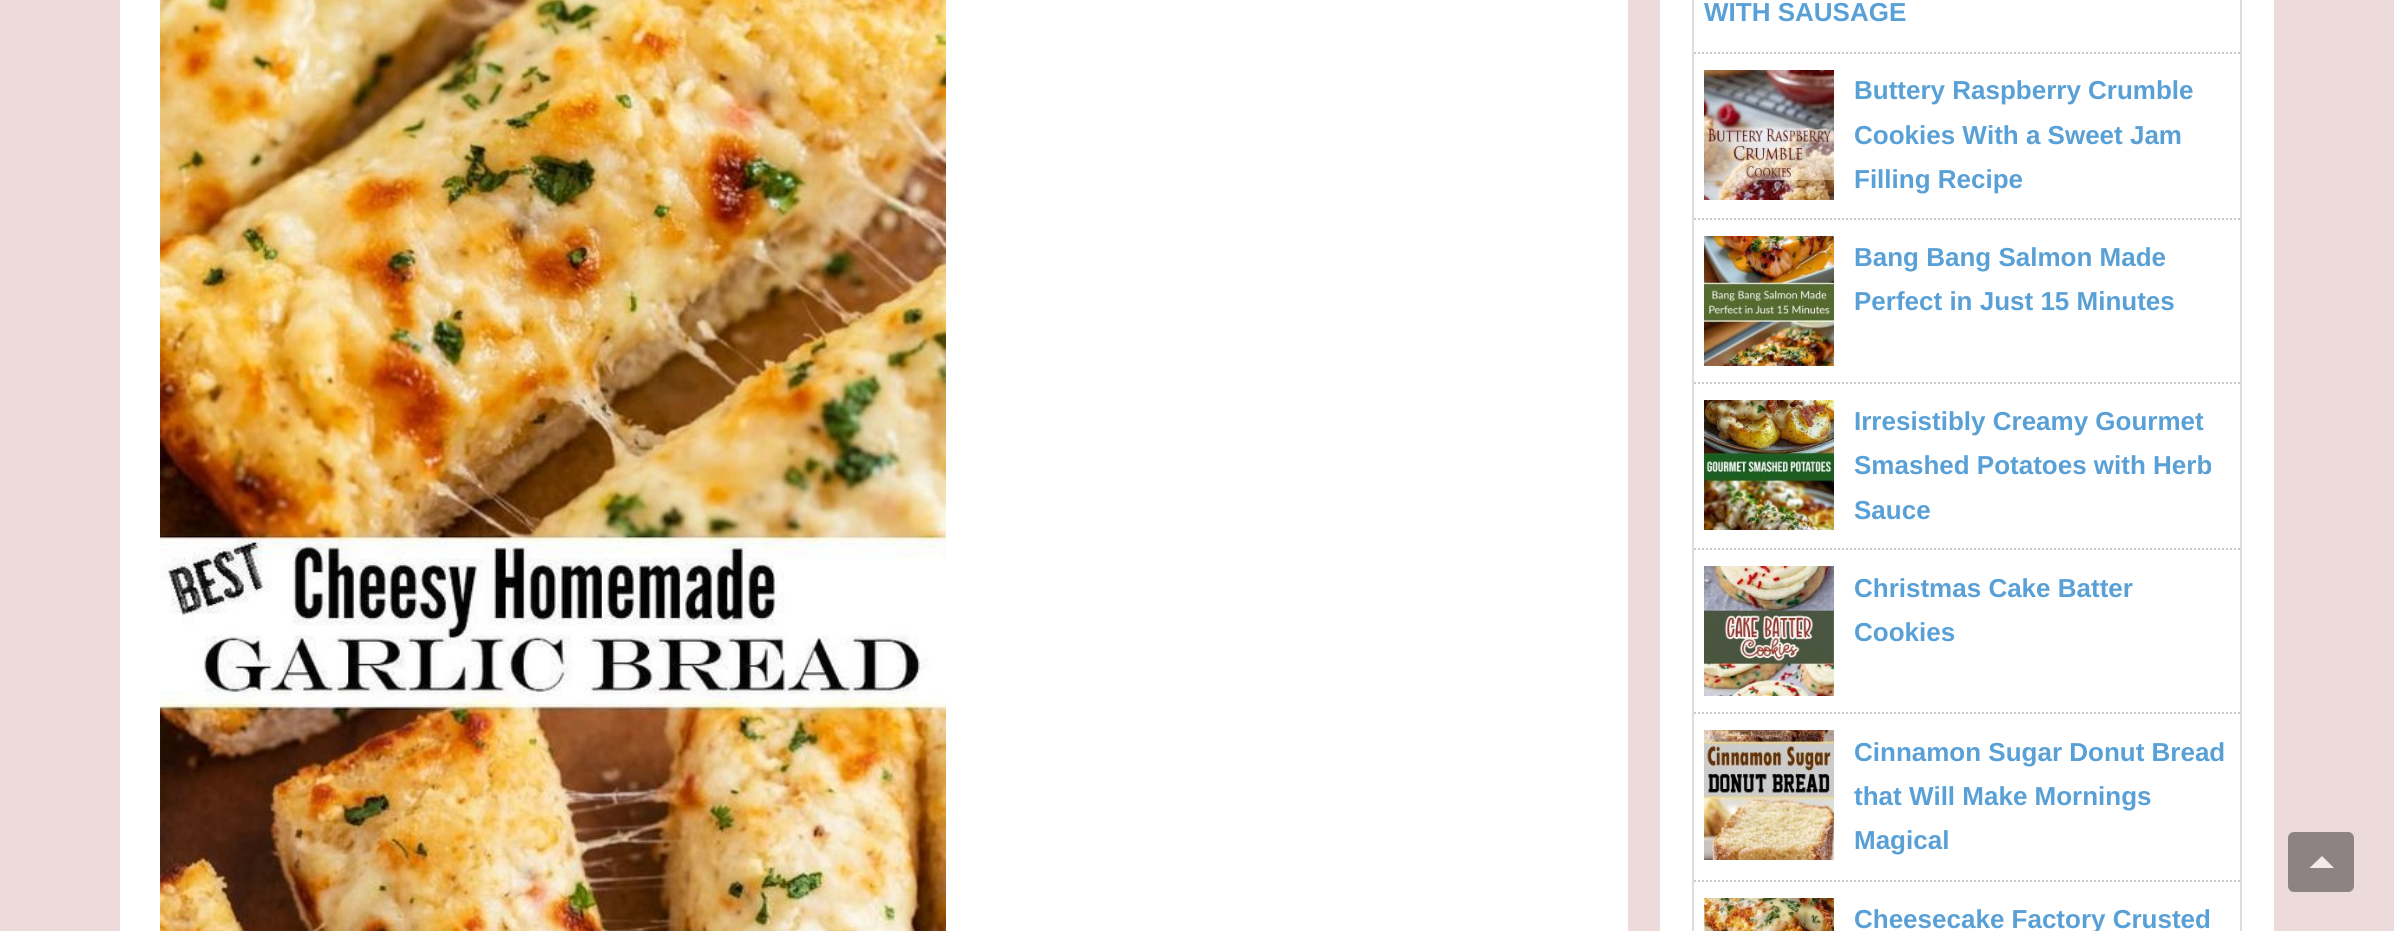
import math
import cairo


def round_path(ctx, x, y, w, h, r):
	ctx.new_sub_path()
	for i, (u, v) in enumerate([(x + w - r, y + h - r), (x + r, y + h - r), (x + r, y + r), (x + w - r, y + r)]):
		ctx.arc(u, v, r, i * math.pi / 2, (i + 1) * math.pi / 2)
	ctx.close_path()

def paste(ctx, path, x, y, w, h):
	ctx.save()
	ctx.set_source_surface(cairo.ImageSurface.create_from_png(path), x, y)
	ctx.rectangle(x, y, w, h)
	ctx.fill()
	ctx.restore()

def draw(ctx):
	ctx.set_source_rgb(0.929, 0.855, 0.855)
	ctx.paint()
	ctx.set_source_rgb(1, 1, 1)
	ctx.rectangle(120, 0, 1508, 931)
	ctx.fill()
	paste(ctx, 'media/1.png', 160, 0, 786, 931)
	ctx.rectangle(1660, 0, 614, 931)
	ctx.fill()
	ctx.rectangle(1693, -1, 548, 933)
	ctx.set_source_rgb(0.867, 0.867, 0.867)
	ctx.stroke()
	ctx.new_path()
	ctx.move_to(1694, 53)
	ctx.line_to(2240, 53)
	ctx.set_source_rgb(0.8, 0.8, 0.8)
	ctx.set_dash([2, 2])
	ctx.stroke()
	ctx.select_font_face('Liberation Sans', cairo.FONT_SLANT_NORMAL, cairo.FONT_WEIGHT_BOLD)
	ctx.set_font_size(26)
	ctx.set_source_rgb(0.349, 0.627, 0.839)
	ctx.move_to(1704, 21)
	ctx.show_text('WITH SAUSAGE')
	ctx.new_path()
	ctx.move_to(1694, 219)
	ctx.line_to(2240, 219)
	ctx.set_source_rgb(0.8, 0.8, 0.8)
	ctx.stroke()
	paste(ctx, 'media/2.png', 1704, 70, 130, 130)
	ctx.set_source_rgb(0.349, 0.627, 0.839)
	for x, y, s in [
		(1854, 99, 'Buttery Raspberry Crumble'),
		(1854, 144, 'Cookies With a Sweet Jam'),
		(1854, 188, 'Filling Recipe'),
	]:
		ctx.move_to(x, y)
		ctx.show_text(s)
	ctx.new_path()
	ctx.move_to(1694, 383)
	ctx.line_to(2240, 383)
	ctx.set_source_rgb(0.8, 0.8, 0.8)
	ctx.stroke()
	paste(ctx, 'media/3.png', 1704, 236, 130, 130)
	ctx.set_source_rgb(0.349, 0.627, 0.839)
	ctx.move_to(1854, 266)
	ctx.show_text('Bang Bang Salmon Made')
	ctx.move_to(1854, 310)
	ctx.show_text('Perfect in Just 15 Minutes')
	ctx.new_path()
	ctx.move_to(1694, 549)
	ctx.line_to(2240, 549)
	ctx.set_source_rgb(0.8, 0.8, 0.8)
	ctx.stroke()
	paste(ctx, 'media/4.png', 1704, 400, 130, 130)
	ctx.set_source_rgb(0.349, 0.627, 0.839)
	for x, y, s in [
		(1854, 430, 'Irresistibly Creamy Gourmet'),
		(1854, 474, 'Smashed Potatoes with Herb'),
		(1854, 519, 'Sauce'),
	]:
		ctx.move_to(x, y)
		ctx.show_text(s)
	ctx.new_path()
	ctx.move_to(1694, 713)
	ctx.line_to(2240, 713)
	ctx.set_source_rgb(0.8, 0.8, 0.8)
	ctx.stroke()
	paste(ctx, 'media/5.png', 1704, 566, 130, 130)
	ctx.set_source_rgb(0.349, 0.627, 0.839)
	ctx.move_to(1854, 597)
	ctx.show_text('Christmas Cake Batter')
	ctx.move_to(1854, 641)
	ctx.show_text('Cookies')
	ctx.new_path()
	ctx.move_to(1694, 881)
	ctx.line_to(2240, 881)
	ctx.set_source_rgb(0.8, 0.8, 0.8)
	ctx.stroke()
	paste(ctx, 'media/6.png', 1704, 730, 130, 130)
	ctx.set_source_rgb(0.349, 0.627, 0.839)
	for x, y, s in [
		(1854, 761, 'Cinnamon Sugar Donut Bread'),
		(1854, 805, 'that Will Make Mornings'),
		(1854, 849, 'Magical'),
	]:
		ctx.move_to(x, y)
		ctx.show_text(s)
	paste(ctx, 'media/7.png', 1704, 898, 130, 33)
	ctx.move_to(1854, 928)
	ctx.show_text('Cheesecake Factory Crusted')
	ctx.set_source_rgb(0.557, 0.514, 0.514)
	round_path(ctx, 2288, 832, 66, 60, 6)
	ctx.fill()
	ctx.set_source_rgb(0.957, 0.914, 0.914)
	ctx.new_path()
	ctx.move_to(2309.5, 868)
	ctx.line_to(2322, 856)
	ctx.line_to(2334, 868)
	ctx.close_path()
	ctx.fill()


surface = cairo.ImageSurface(cairo.FORMAT_RGB24, 2394, 931)
ctx = cairo.Context(surface)
options = cairo.FontOptions()
options.set_hint_metrics(cairo.HINT_METRICS_OFF)
options.set_hint_style(cairo.HINT_STYLE_NONE)
ctx.set_font_options(options)
ctx.set_miter_limit(4)
draw(ctx)
surface.write_to_png('image.png')
